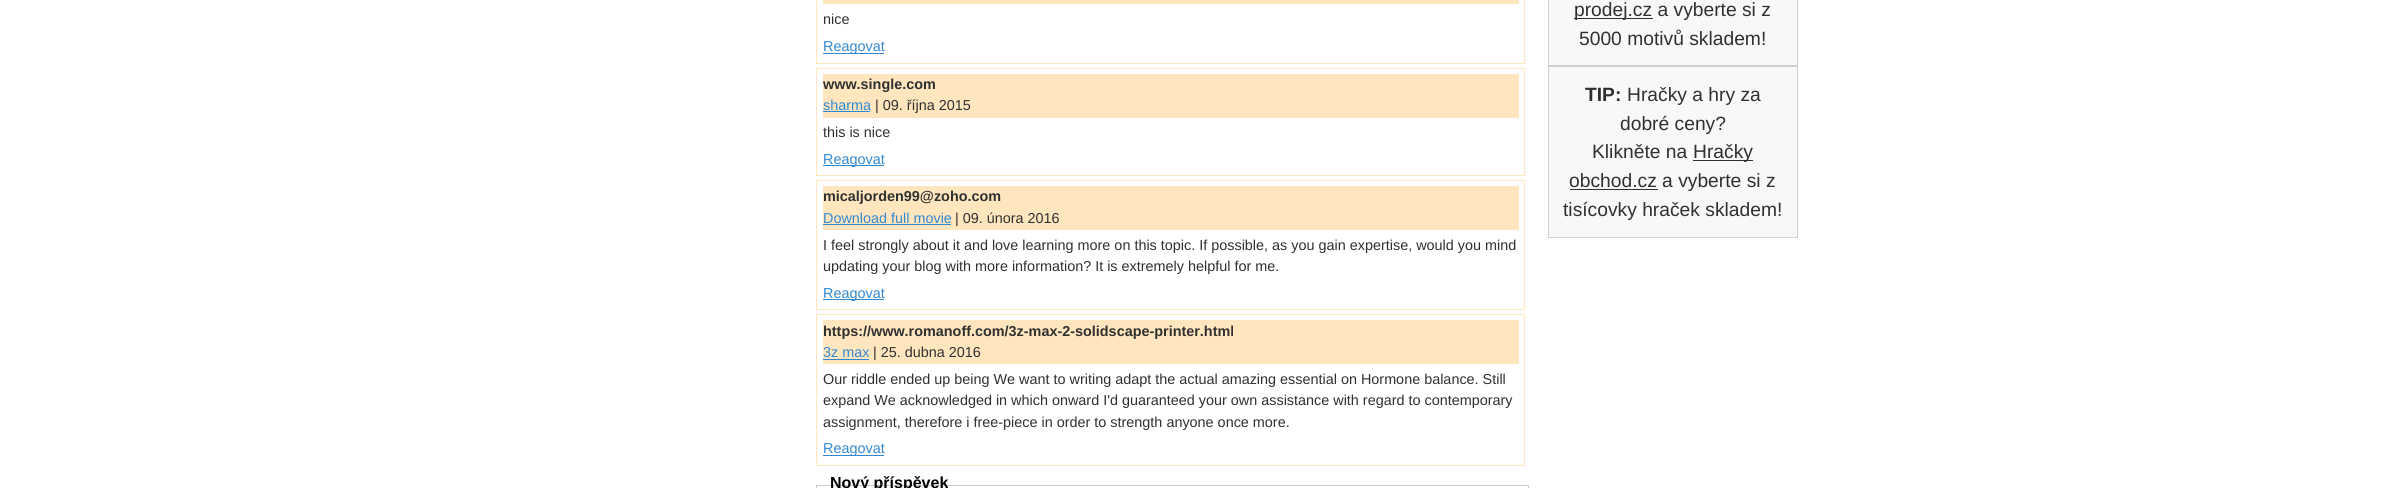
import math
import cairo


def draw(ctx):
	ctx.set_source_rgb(1, 1, 1)
	ctx.paint()
	ctx.rectangle(816.5, -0.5, 708, 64)
	ctx.set_source_rgb(1, 0.902, 0.749)
	ctx.set_line_width(1)
	ctx.stroke()
	ctx.rectangle(823, 0, 696, 4)
	ctx.fill()
	ctx.select_font_face('Liberation Sans')
	ctx.set_font_size(14.4)
	ctx.set_source_rgb(0.188, 0.188, 0.188)
	ctx.move_to(823, 24)
	ctx.show_text('nice')
	ctx.set_source_rgb(0.196, 0.533, 0.82)
	ctx.rectangle(823, 53, 61, 1)
	ctx.fill()
	ctx.move_to(823, 51)
	ctx.show_text('Reagovat')
	ctx.rectangle(816.5, 68.5, 708, 107)
	ctx.set_source_rgb(1, 0.902, 0.749)
	ctx.stroke()
	ctx.rectangle(823, 74, 696, 44)
	ctx.fill()
	ctx.select_font_face('Liberation Sans', cairo.FONT_SLANT_NORMAL, cairo.FONT_WEIGHT_BOLD)
	ctx.set_source_rgb(0.188, 0.188, 0.188)
	ctx.move_to(823, 89)
	ctx.show_text('www.single.com')
	ctx.select_font_face('Liberation Sans')
	ctx.set_source_rgb(0.196, 0.533, 0.82)
	ctx.move_to(823, 110)
	ctx.show_text('sharma')
	ctx.rectangle(823, 111, 47, 1)
	ctx.fill()
	ctx.set_source_rgb(0.188, 0.188, 0.188)
	ctx.move_to(875, 110)
	ctx.show_text('| 09. října 2015')
	ctx.move_to(823, 137)
	ctx.show_text('this is nice')
	ctx.set_source_rgb(0.196, 0.533, 0.82)
	ctx.rectangle(823, 165, 61, 1)
	ctx.fill()
	ctx.move_to(823, 164)
	ctx.show_text('Reagovat')
	ctx.rectangle(816.5, 180.5, 708, 129)
	ctx.set_source_rgb(1, 0.902, 0.749)
	ctx.stroke()
	ctx.rectangle(823, 186, 696, 44)
	ctx.fill()
	ctx.select_font_face('Liberation Sans', cairo.FONT_SLANT_NORMAL, cairo.FONT_WEIGHT_BOLD)
	ctx.set_source_rgb(0.188, 0.188, 0.188)
	ctx.move_to(823, 201)
	ctx.show_text('micaljorden99@zoho.com')
	ctx.select_font_face('Liberation Sans')
	ctx.set_source_rgb(0.196, 0.533, 0.82)
	ctx.move_to(823, 223)
	ctx.show_text('Download full movie')
	ctx.rectangle(823, 224, 128, 1)
	ctx.fill()
	ctx.set_source_rgb(0.188, 0.188, 0.188)
	for x, y, s in [
		(955, 223, '| 09. února 2016'),
		(823, 250, 'I feel strongly about it and love learning more on this topic. If possible, as you gain expertise, would you mind'),
		(823, 271, 'updating your blog with more information? It is extremely helpful for me.'),
	]:
		ctx.move_to(x, y)
		ctx.show_text(s)
	ctx.set_source_rgb(0.196, 0.533, 0.82)
	ctx.rectangle(823, 299, 61, 1)
	ctx.fill()
	ctx.move_to(823, 298)
	ctx.show_text('Reagovat')
	ctx.rectangle(816.5, 314.5, 708, 151)
	ctx.set_source_rgb(1, 0.902, 0.749)
	ctx.stroke()
	ctx.rectangle(823, 320, 696, 44)
	ctx.fill()
	ctx.select_font_face('Liberation Sans', cairo.FONT_SLANT_NORMAL, cairo.FONT_WEIGHT_BOLD)
	ctx.set_source_rgb(0.188, 0.188, 0.188)
	ctx.move_to(823, 336)
	ctx.show_text('https://www.romanoff.com/3z-max-2-solidscape-printer.html')
	ctx.select_font_face('Liberation Sans')
	ctx.set_source_rgb(0.196, 0.533, 0.82)
	ctx.move_to(823, 357)
	ctx.show_text('3z max')
	ctx.rectangle(823, 359, 46, 1)
	ctx.fill()
	ctx.set_source_rgb(0.188, 0.188, 0.188)
	for x, y, s in [
		(873, 357, '| 25. dubna 2016'),
		(823, 384, 'Our riddle ended up being We want to writing adapt the actual amazing essential on Hormone balance. Still'),
		(823, 405, 'expand We acknowledged in which onward I\'d guaranteed your own assistance with regard to contemporary'),
		(823, 427, 'assignment, therefore i free-piece in order to strength anyone once more.'),
	]:
		ctx.move_to(x, y)
		ctx.show_text(s)
	ctx.set_source_rgb(0.196, 0.533, 0.82)
	ctx.rectangle(823, 455, 61, 1)
	ctx.fill()
	ctx.move_to(823, 453)
	ctx.show_text('Reagovat')
	ctx.rectangle(816.5, 485.5, 712, 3)
	ctx.set_source_rgb(0.8, 0.8, 0.8)
	ctx.stroke()
	ctx.select_font_face('Liberation Sans', cairo.FONT_SLANT_NORMAL, cairo.FONT_WEIGHT_BOLD)
	ctx.set_font_size(16)
	ctx.set_source_rgb(0, 0, 0)
	ctx.move_to(830, 488)
	ctx.show_text('Nový příspěvek')
	ctx.set_source_rgb(0.969, 0.969, 0.969)
	ctx.rectangle(1548.5, -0.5, 249, 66)
	ctx.fill_preserve()
	ctx.set_source_rgb(0.816, 0.816, 0.816)
	ctx.stroke()
	ctx.set_source_rgb(0.188, 0.188, 0.188)
	ctx.rectangle(1574, 18, 79, 1)
	ctx.fill()
	ctx.select_font_face('Liberation Sans')
	ctx.set_font_size(19.25)
	ctx.move_to(1574, 16)
	ctx.show_text('prodej.cz a vyberte si z')
	ctx.move_to(1579, 45)
	ctx.show_text('5000 motivů skladem!')
	ctx.set_source_rgb(0.969, 0.969, 0.969)
	ctx.rectangle(1548.5, 66.5, 249, 171)
	ctx.fill_preserve()
	ctx.set_source_rgb(0.816, 0.816, 0.816)
	ctx.stroke()
	ctx.select_font_face('Liberation Sans', cairo.FONT_SLANT_NORMAL, cairo.FONT_WEIGHT_BOLD)
	ctx.set_source_rgb(0.188, 0.188, 0.188)
	ctx.move_to(1585, 101)
	ctx.show_text('TIP:')
	ctx.select_font_face('Liberation Sans')
	for x, y, s in [
		(1627, 101, 'Hračky a hry za'),
		(1620, 130, 'dobré ceny?'),
		(1592, 158, 'Klikněte na'),
	]:
		ctx.move_to(x, y)
		ctx.show_text(s)
	ctx.rectangle(1693, 160, 60, 1)
	ctx.fill()
	ctx.move_to(1693, 158)
	ctx.show_text('Hračky')
	ctx.rectangle(1570, 189, 88, 1)
	ctx.fill()
	ctx.move_to(1569, 187)
	ctx.show_text('obchod.cz a vyberte si z')
	ctx.move_to(1563, 216)
	ctx.show_text('tisícovky hraček skladem!')


surface = cairo.ImageSurface(cairo.FORMAT_RGB24, 2395, 488)
ctx = cairo.Context(surface)
options = cairo.FontOptions()
options.set_hint_metrics(cairo.HINT_METRICS_OFF)
options.set_hint_style(cairo.HINT_STYLE_NONE)
ctx.set_font_options(options)
ctx.set_miter_limit(4)
draw(ctx)
surface.write_to_png('image.png')
